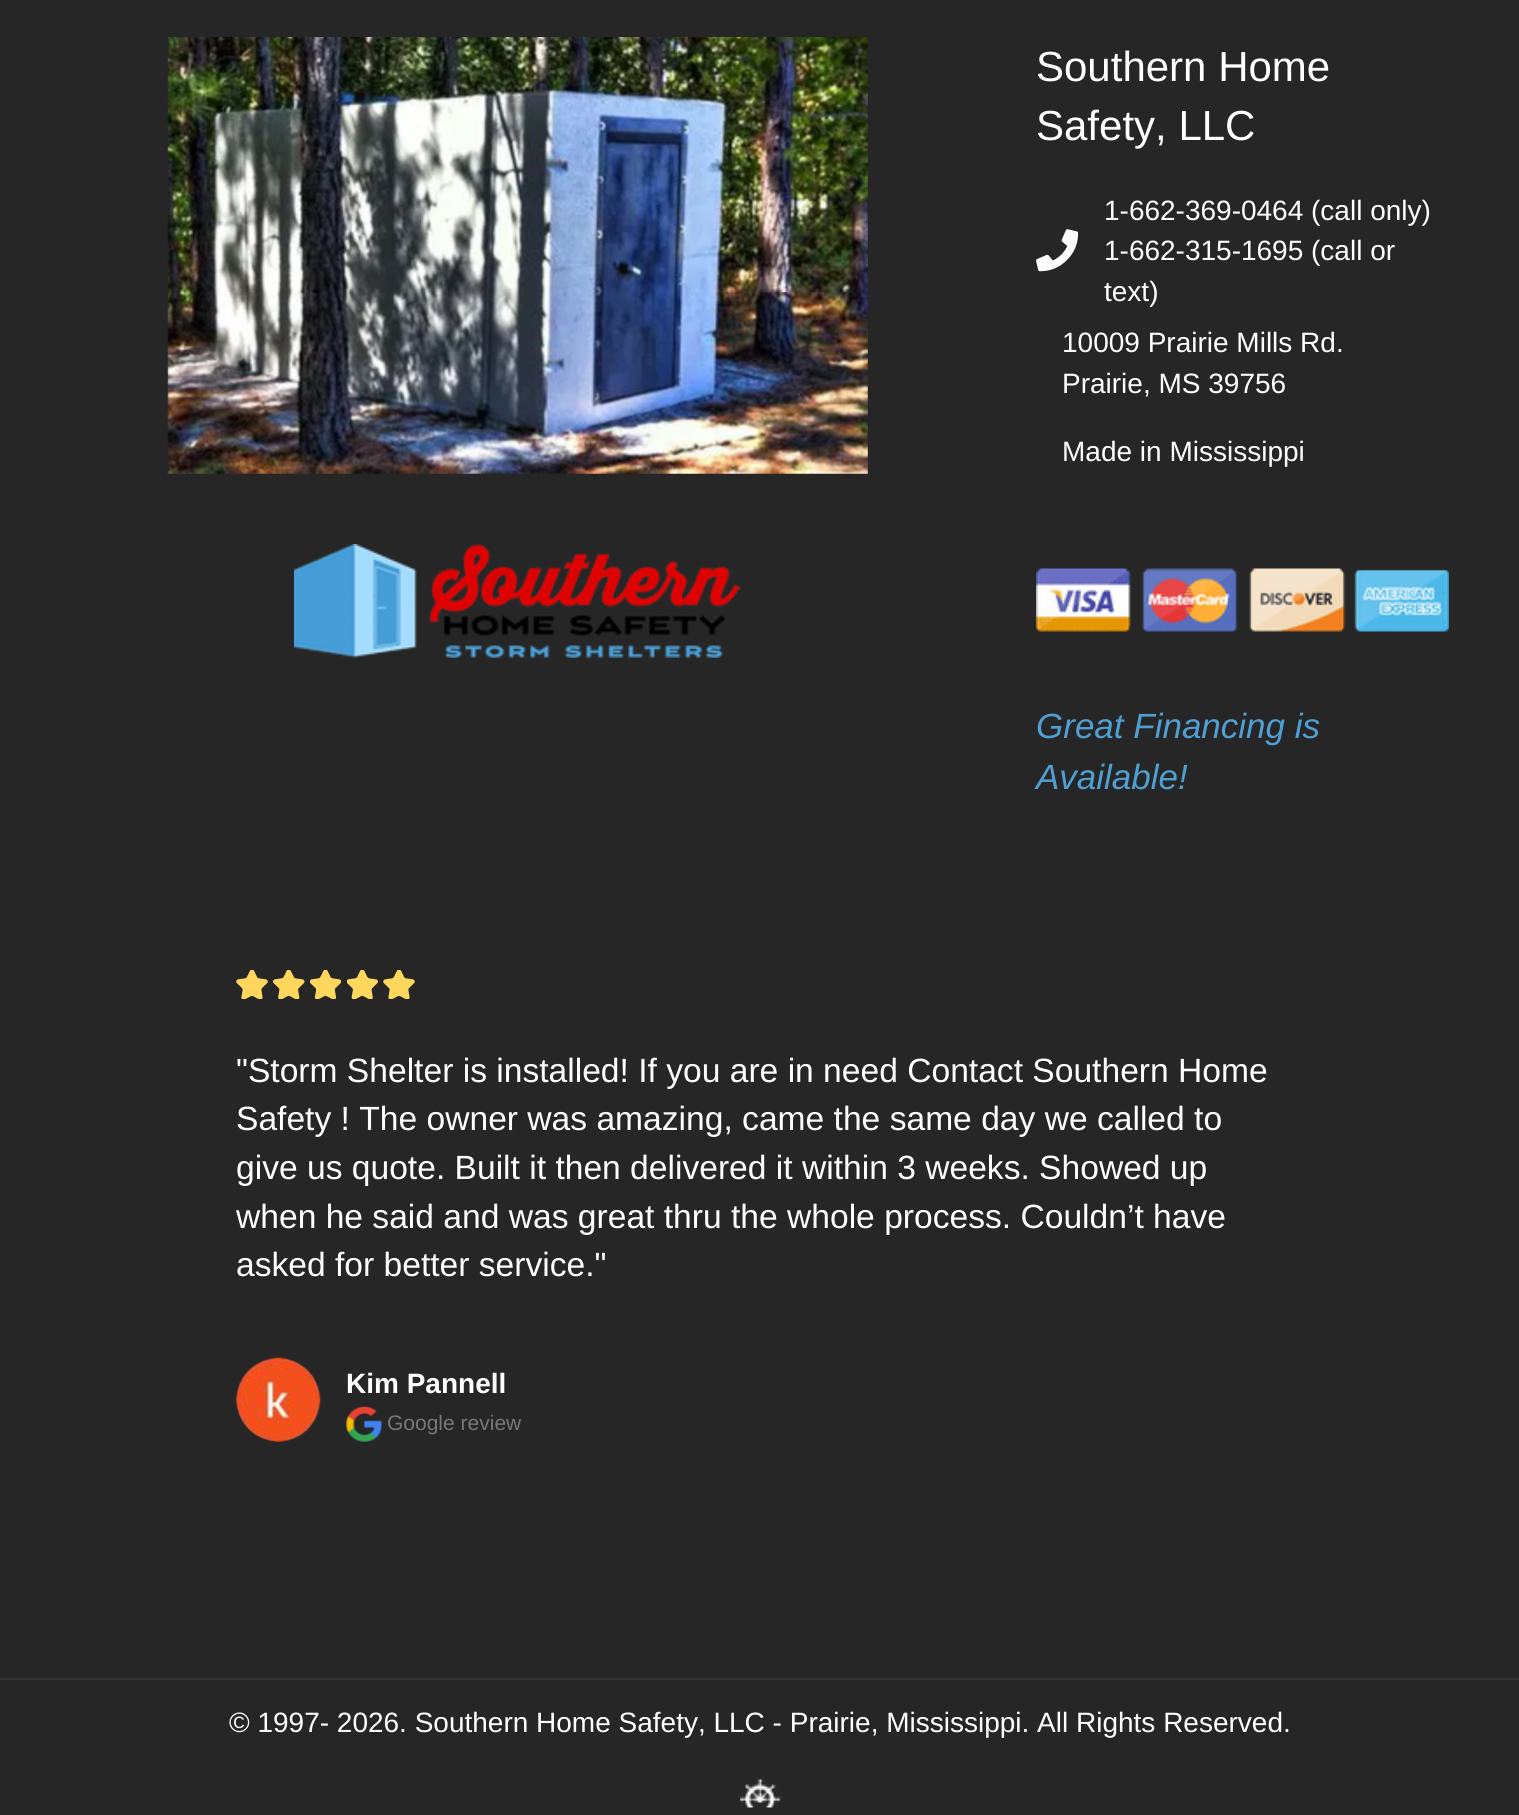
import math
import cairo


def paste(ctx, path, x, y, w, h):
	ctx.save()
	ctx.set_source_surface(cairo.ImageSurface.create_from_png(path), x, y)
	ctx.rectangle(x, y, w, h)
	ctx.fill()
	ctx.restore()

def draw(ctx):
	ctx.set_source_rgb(0.149, 0.149, 0.149)
	ctx.paint()
	ctx.set_source_rgb(0.2, 0.2, 0.2)
	ctx.rectangle(0, 1678, 1519, 2)
	ctx.fill()
	paste(ctx, 'media/1.png', 167, 37, 701, 437)
	paste(ctx, 'media/2.png', 294, 544, 447, 114)
	ctx.select_font_face('Liberation Sans')
	ctx.set_font_size(42)
	ctx.set_source_rgb(1, 1, 1)
	ctx.move_to(1036, 81)
	ctx.show_text('Southern Home')
	ctx.move_to(1036, 140)
	ctx.show_text('Safety, LLC')
	paste(ctx, 'media/3.png', 1036, 229, 43, 43)
	ctx.set_font_size(28)
	for x, y, s in [
		(1104, 220, '1-662-369-0464 (call only)'),
		(1104, 260, '1-662-315-1695 (call or'),
		(1104, 301, 'text)'),
		(1062, 352, '10009 Prairie Mills Rd.'),
		(1062, 393, 'Prairie, MS 39756'),
		(1062, 461, 'Made in Mississippi'),
	]:
		ctx.move_to(x, y)
		ctx.show_text(s)
	paste(ctx, 'media/4.png', 1036, 568, 413, 64)
	ctx.select_font_face('Liberation Sans', cairo.FONT_SLANT_ITALIC)
	ctx.set_font_size(35)
	ctx.set_source_rgb(0.31, 0.624, 0.827)
	ctx.move_to(1036, 738)
	ctx.show_text('Great Financing is')
	ctx.move_to(1036, 789)
	ctx.show_text('Available!')
	paste(ctx, 'media/5.png', 236, 970, 32, 29)
	paste(ctx, 'media/6.png', 273, 970, 32, 29)
	paste(ctx, 'media/7.png', 310, 970, 31, 29)
	paste(ctx, 'media/8.png', 347, 970, 31, 29)
	paste(ctx, 'media/5.png', 383, 970, 32, 29)
	ctx.select_font_face('Liberation Sans')
	ctx.set_font_size(33.6)
	ctx.set_source_rgb(1, 1, 1)
	for x, y, s in [
		(236, 1082, '"Storm Shelter is installed! If you are in need Contact Southern Home'),
		(236, 1130, 'Safety ! The owner was amazing, came the same day we called to'),
		(236, 1179, 'give us quote. Built it then delivered it within 3 weeks. Showed up'),
		(236, 1228, 'when he said and was great thru the whole process. Couldn’t have'),
		(236, 1276, 'asked for better service."'),
	]:
		ctx.move_to(x, y)
		ctx.show_text(s)
	paste(ctx, 'media/9.png', 236, 1357, 85, 85)
	ctx.select_font_face('Liberation Sans', cairo.FONT_SLANT_NORMAL, cairo.FONT_WEIGHT_BOLD)
	ctx.set_font_size(28)
	ctx.move_to(346, 1393)
	ctx.show_text('Kim Pannell')
	paste(ctx, 'media/10.png', 346, 1406, 37, 36)
	ctx.select_font_face('Liberation Sans')
	ctx.set_font_size(21)
	ctx.set_source_rgb(0.467, 0.467, 0.467)
	ctx.move_to(387, 1430)
	ctx.show_text('Google review')
	ctx.set_font_size(28)
	ctx.set_source_rgb(1, 1, 1)
	ctx.move_to(229, 1732)
	ctx.show_text('© 1997- 2026. Southern Home Safety, LLC - Prairie, Mississippi. All Rights Reserved.')
	paste(ctx, 'media/11.png', 740, 1779, 41, 29)


surface = cairo.ImageSurface(cairo.FORMAT_RGB24, 1519, 1815)
ctx = cairo.Context(surface)
options = cairo.FontOptions()
options.set_hint_metrics(cairo.HINT_METRICS_OFF)
options.set_hint_style(cairo.HINT_STYLE_NONE)
ctx.set_font_options(options)
ctx.set_miter_limit(4)
draw(ctx)
surface.write_to_png('image.png')
